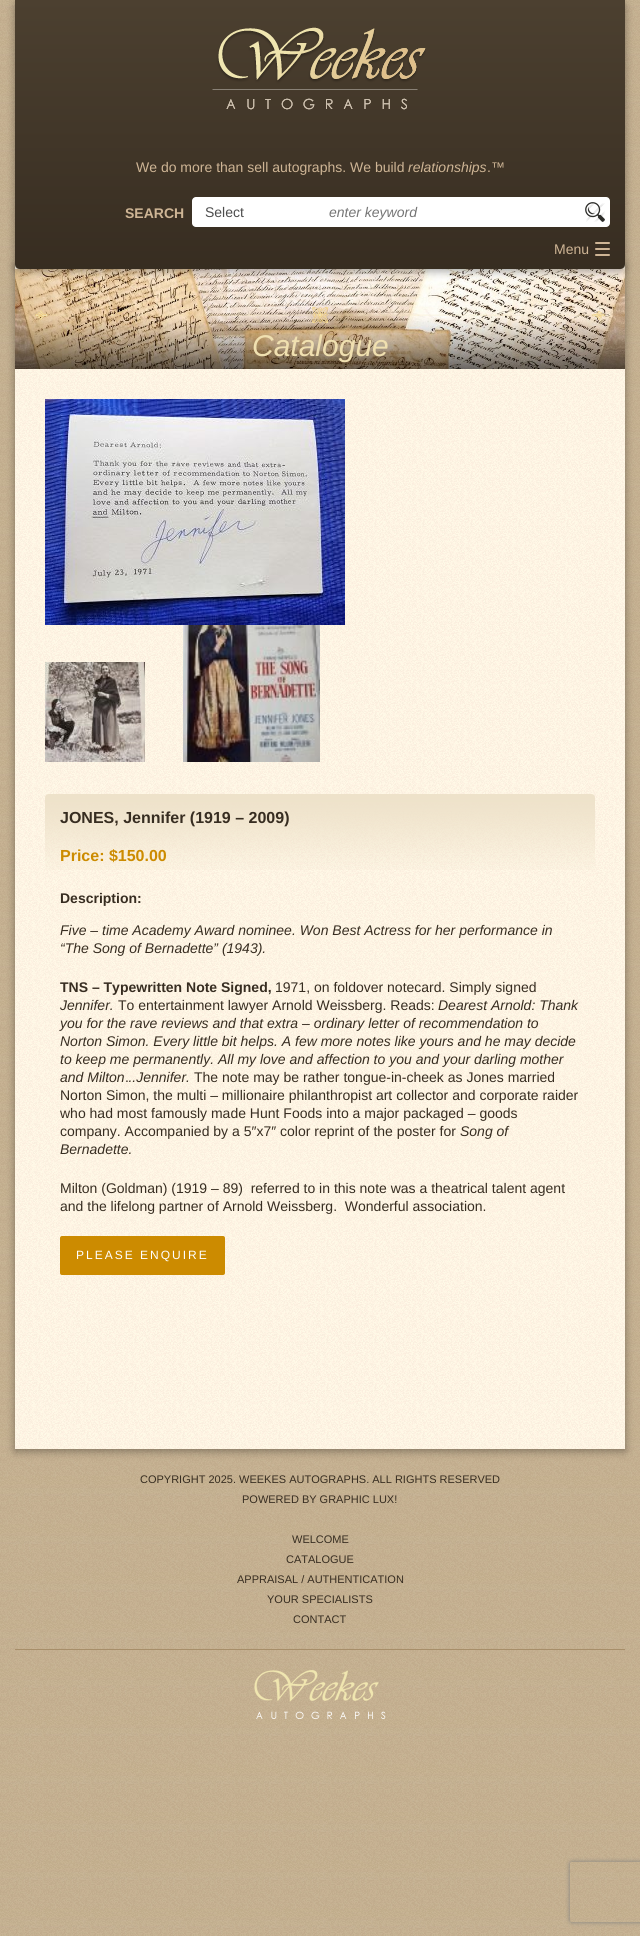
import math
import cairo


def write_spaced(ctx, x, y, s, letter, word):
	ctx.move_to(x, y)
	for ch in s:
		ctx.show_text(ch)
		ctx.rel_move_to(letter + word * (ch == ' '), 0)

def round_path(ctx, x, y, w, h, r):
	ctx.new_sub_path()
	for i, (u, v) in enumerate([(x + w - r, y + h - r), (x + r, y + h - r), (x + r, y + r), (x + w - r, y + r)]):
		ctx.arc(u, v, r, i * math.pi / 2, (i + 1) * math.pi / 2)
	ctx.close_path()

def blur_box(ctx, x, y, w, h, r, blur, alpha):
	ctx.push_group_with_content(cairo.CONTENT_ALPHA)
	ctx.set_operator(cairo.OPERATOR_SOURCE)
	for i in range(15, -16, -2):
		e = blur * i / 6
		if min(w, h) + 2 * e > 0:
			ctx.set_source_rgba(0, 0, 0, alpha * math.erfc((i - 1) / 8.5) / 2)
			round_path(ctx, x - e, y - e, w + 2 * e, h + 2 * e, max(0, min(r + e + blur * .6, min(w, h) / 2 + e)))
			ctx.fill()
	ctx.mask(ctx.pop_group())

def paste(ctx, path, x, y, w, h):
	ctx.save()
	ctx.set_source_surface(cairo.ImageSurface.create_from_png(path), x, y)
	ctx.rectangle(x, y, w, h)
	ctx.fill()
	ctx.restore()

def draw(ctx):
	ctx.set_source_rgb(1, 1, 1)
	ctx.paint()
	paste(ctx, 'media/1.png', 0, 0, 640, 1936)
	ctx.set_source_rgb(0, 0, 0)
	blur_box(ctx, 15, 266, 610, 1185, 0, 4.5, 0.37)
	paste(ctx, 'media/4.png', 15, 264, 610, 1185)
	paste(ctx, 'media/5.png', 15, 269, 610, 100)
	blur_box(ctx, 15, 2, 610, 269, 5, 4.5, 0.37)
	gradient = cairo.LinearGradient(320, 0, 320, 269)
	gradient.add_color_stop_rgba(0, 0.298, 0.251, 0.188, 1)
	gradient.add_color_stop_rgba(1, 0.216, 0.176, 0.129, 1)
	ctx.set_source(gradient)
	ctx.new_path()
	ctx.move_to(15, 0)
	ctx.line_to(625, 0)
	ctx.line_to(625, 264)
	ctx.curve_to(625, 267, 623, 269, 620, 269)
	ctx.line_to(20, 269)
	ctx.curve_to(17, 269, 15, 267, 15, 264)
	ctx.close_path()
	ctx.fill()
	paste(ctx, 'media/2.png', 212, 27, 214, 83)
	ctx.select_font_face('Liberation Sans')
	ctx.set_font_size(14)
	ctx.set_source_rgb(0.808, 0.71, 0.584)
	ctx.move_to(136, 172)
	ctx.show_text('We do more than sell autographs. We build')
	ctx.select_font_face('Liberation Sans', cairo.FONT_SLANT_ITALIC)
	ctx.move_to(408, 172)
	ctx.show_text('relationships')
	ctx.select_font_face('Liberation Sans')
	ctx.move_to(487, 172)
	ctx.show_text('.™')
	ctx.select_font_face('Liberation Sans', cairo.FONT_SLANT_NORMAL, cairo.FONT_WEIGHT_BOLD)
	ctx.move_to(125, 218)
	ctx.show_text('SEARCH')
	ctx.set_source_rgb(1, 1, 1)
	round_path(ctx, 192, 197, 418, 30, 4)
	ctx.fill()
	ctx.select_font_face('Liberation Sans')
	ctx.set_source_rgb(0.302, 0.302, 0.302)
	ctx.move_to(205, 217)
	ctx.show_text('Select')
	ctx.select_font_face('Liberation Sans', cairo.FONT_SLANT_ITALIC)
	ctx.set_source_rgb(0.459, 0.459, 0.459)
	ctx.move_to(329, 217)
	ctx.show_text('enter keyword')
	paste(ctx, 'media/3.png', 585, 202, 20, 20)
	ctx.set_source_rgb(0.808, 0.71, 0.584)
	round_path(ctx, 595, 242, 15, 2, 1)
	ctx.fill()
	ctx.select_font_face('Liberation Sans')
	ctx.move_to(554, 254)
	ctx.show_text('Menu')
	round_path(ctx, 595, 248, 15, 2, 1)
	ctx.fill()
	round_path(ctx, 595, 254, 15, 2, 1)
	ctx.fill()
	paste(ctx, 'media/6.png', 35, 307, 570, 16)
	ctx.select_font_face('Liberation Sans', cairo.FONT_SLANT_ITALIC)
	ctx.set_font_size(30)
	ctx.set_source_rgb(0.941, 0.878, 0.69)
	ctx.move_to(252, 356)
	ctx.show_text('Catalogue')
	paste(ctx, 'media/7.png', 45, 399, 300, 226)
	paste(ctx, 'media/8.png', 45, 662, 100, 100)
	paste(ctx, 'media/9.png', 183, 625, 137, 137)
	paste(ctx, 'media/10.png', 45, 794, 550, 76)
	ctx.select_font_face('Liberation Sans', cairo.FONT_SLANT_NORMAL, cairo.FONT_WEIGHT_BOLD)
	ctx.set_font_size(16)
	ctx.set_source_rgb(0.216, 0.176, 0.129)
	ctx.move_to(60, 823)
	ctx.show_text('JONES, Jennifer (1919 – 2009)')
	ctx.set_source_rgb(0.8, 0.545, 0)
	ctx.move_to(60, 861)
	ctx.show_text('Price: $150.00')
	ctx.set_font_size(14)
	ctx.set_source_rgb(0.216, 0.176, 0.129)
	ctx.move_to(60, 903)
	ctx.show_text('Description:')
	ctx.select_font_face('Liberation Sans', cairo.FONT_SLANT_ITALIC)
	ctx.move_to(60, 935)
	ctx.show_text('Five – time Academy Award nominee. Won Best Actress for her performance in')
	ctx.move_to(60, 953)
	ctx.show_text('“The Song of Bernadette” (1943).')
	ctx.select_font_face('Liberation Sans', cairo.FONT_SLANT_NORMAL, cairo.FONT_WEIGHT_BOLD)
	ctx.move_to(60, 992)
	ctx.show_text('TNS – Typewritten Note Signed,')
	ctx.select_font_face('Liberation Sans')
	ctx.move_to(275, 992)
	ctx.show_text('1971, on foldover notecard. Simply signed')
	ctx.select_font_face('Liberation Sans', cairo.FONT_SLANT_ITALIC)
	ctx.move_to(60, 1010)
	ctx.show_text('Jennifer.')
	ctx.select_font_face('Liberation Sans')
	ctx.move_to(118, 1010)
	ctx.show_text('To entertainment lawyer Arnold Weissberg. Reads:')
	ctx.select_font_face('Liberation Sans', cairo.FONT_SLANT_ITALIC)
	for x, y, s in [
		(438, 1010, 'Dearest Arnold: Thank'),
		(60, 1028, 'you for the rave reviews and that extra – ordinary letter of recommendation to'),
		(60, 1046, 'Norton Simon. Every little bit helps. A few more notes like yours and he may decide'),
		(60, 1064, 'to keep me permanently. All my love and affection to you and your darling mother'),
		(60, 1082, 'and Milton ..Jennifer.'),
	]:
		ctx.move_to(x, y)
		ctx.show_text(s)
	ctx.select_font_face('Liberation Sans')
	for x, y, s in [
		(194, 1082, 'The note may be rather tongue-in-cheek as Jones married'),
		(125, 1082, '.'),
		(60, 1100, 'Norton Simon, the multi – millionaire philanthropist art collector and corporate raider'),
		(60, 1118, 'who had most famously made Hunt Foods into a major packaged – goods'),
		(60, 1136, 'company. Accompanied by a 5″x7″ color reprint of the poster for'),
	]:
		ctx.move_to(x, y)
		ctx.show_text(s)
	ctx.select_font_face('Liberation Sans', cairo.FONT_SLANT_ITALIC)
	ctx.move_to(460, 1136)
	ctx.show_text('Song of')
	ctx.move_to(60, 1154)
	ctx.show_text('Bernadette.')
	ctx.select_font_face('Liberation Sans')
	ctx.move_to(60, 1193)
	ctx.show_text('Milton (Goldman) (1919 – 89)  referred to in this note was a theatrical talent agent')
	ctx.move_to(60, 1211)
	ctx.show_text('and the lifelong partner of Arnold Weissberg.  Wonderful association.')
	ctx.set_source_rgb(0.8, 0.545, 0)
	round_path(ctx, 60, 1236, 165, 39, 2)
	ctx.fill()
	ctx.set_font_size(12)
	ctx.set_source_rgb(1, 1, 1)
	write_spaced(ctx, 76, 1259, 'PLEASE ENQUIRE', 2, 0)
	ctx.set_font_size(11)
	ctx.set_source_rgb(0.216, 0.176, 0.129)
	for x, y, s in [
		(140, 1483, 'COPYRIGHT 2025. WEEKES AUTOGRAPHS. ALL RIGHTS RESERVED'),
		(242, 1503, 'POWERED BY GRAPHIC LUX!'),
		(292, 1543, 'WELCOME'),
		(286, 1563, 'CATALOGUE'),
		(237, 1583, 'APPRAISAL / AUTHENTICATION'),
		(267, 1603, 'YOUR SPECIALISTS'),
		(293, 1623, 'CONTACT'),
	]:
		ctx.move_to(x, y)
		ctx.show_text(s)
	ctx.set_source_rgb(0.655, 0.557, 0.412)
	ctx.rectangle(15, 1649, 610, 1)
	ctx.fill()
	paste(ctx, 'media/11.png', 254, 1670, 132, 49)
	ctx.save()
	ctx.set_fill_rule(cairo.FILL_RULE_EVEN_ODD)
	ctx.new_path()
	ctx.move_to(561, 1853)
	ctx.line_to(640, 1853)
	ctx.line_to(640, 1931)
	ctx.line_to(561, 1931)
	ctx.close_path()
	ctx.move_to(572, 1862)
	ctx.line_to(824, 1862)
	ctx.curve_to(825, 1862, 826, 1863, 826, 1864)
	ctx.line_to(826, 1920)
	ctx.curve_to(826, 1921, 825, 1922, 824, 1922)
	ctx.line_to(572, 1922)
	ctx.curve_to(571, 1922, 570, 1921, 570, 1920)
	ctx.line_to(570, 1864)
	ctx.curve_to(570, 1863, 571, 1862, 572, 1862)
	ctx.close_path()
	ctx.clip()
	ctx.set_source_rgb(0.502, 0.502, 0.502)
	blur_box(ctx, 570, 1862, 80, 60, 2, 2.5, 1)
	ctx.restore()


surface = cairo.ImageSurface(cairo.FORMAT_RGB24, 640, 1936)
ctx = cairo.Context(surface)
options = cairo.FontOptions()
options.set_hint_metrics(cairo.HINT_METRICS_OFF)
options.set_hint_style(cairo.HINT_STYLE_NONE)
ctx.set_font_options(options)
ctx.set_miter_limit(4)
draw(ctx)
surface.write_to_png('image.png')
